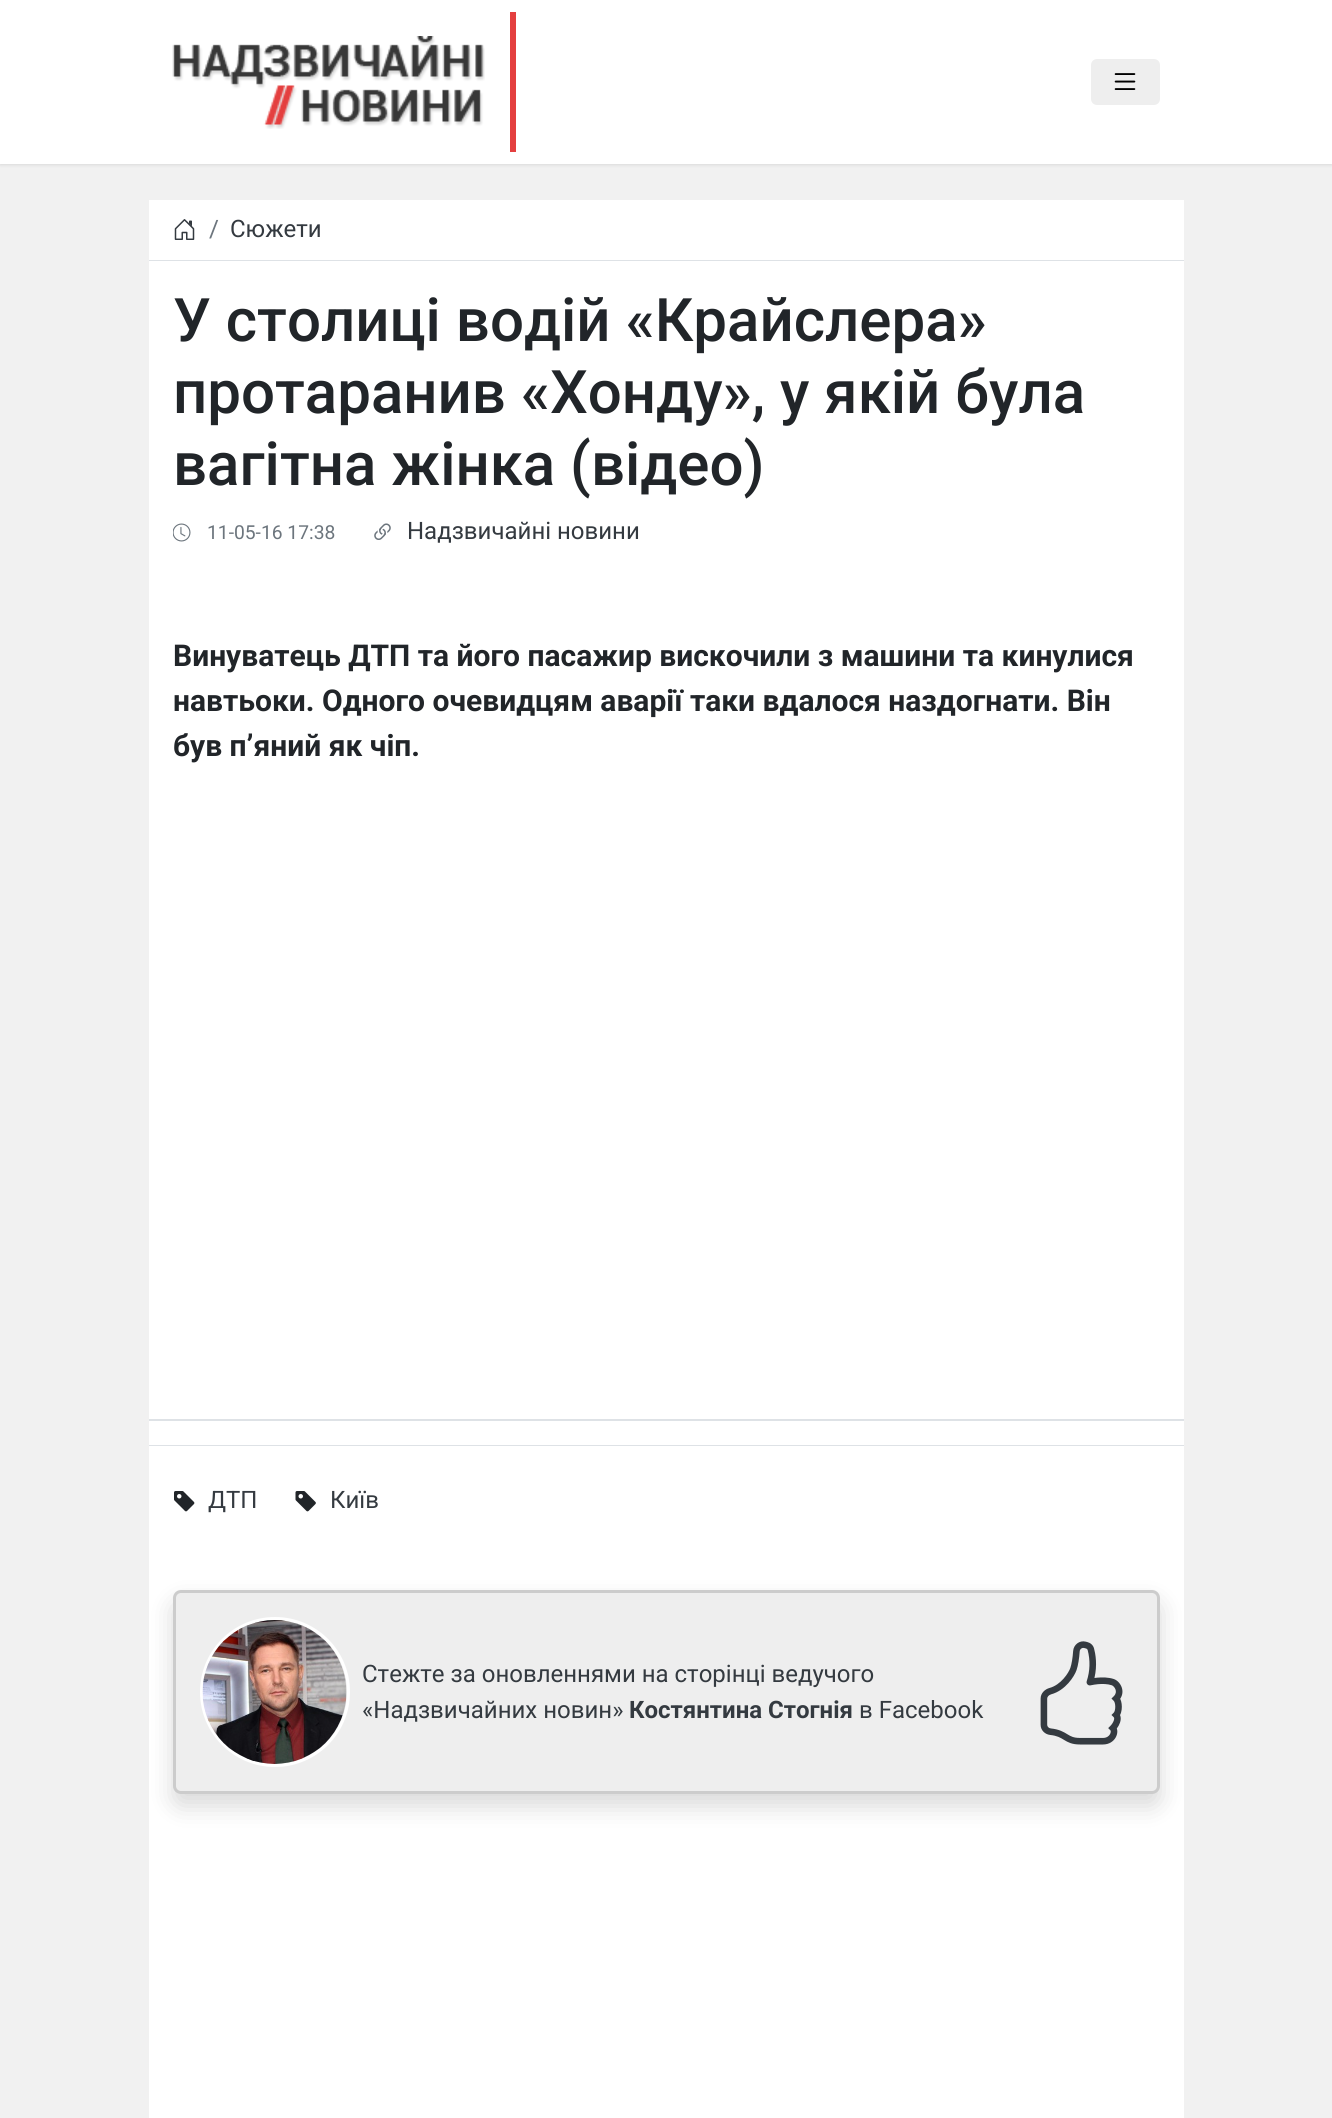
import math
import cairo


def round_path(ctx, x, y, w, h, r):
	ctx.new_sub_path()
	for i, (u, v) in enumerate([(x + w - r, y + h - r), (x + r, y + h - r), (x + r, y + r), (x + w - r, y + r)]):
		ctx.arc(u, v, r, i * math.pi / 2, (i + 1) * math.pi / 2)
	ctx.close_path()

def blur_box(ctx, x, y, w, h, r, blur, alpha):
	ctx.push_group_with_content(cairo.CONTENT_ALPHA)
	ctx.set_operator(cairo.OPERATOR_SOURCE)
	for i in range(15, -16, -2):
		e = blur * i / 6
		if min(w, h) + 2 * e > 0:
			ctx.set_source_rgba(0, 0, 0, alpha * math.erfc((i - 1) / 8.5) / 2)
			round_path(ctx, x - e, y - e, w + 2 * e, h + 2 * e, max(0, min(r + e + blur * .6, min(w, h) / 2 + e)))
			ctx.fill()
	ctx.mask(ctx.pop_group())

def paste(ctx, path, x, y, w, h):
	ctx.save()
	ctx.set_source_surface(cairo.ImageSurface.create_from_png(path), x, y)
	ctx.rectangle(x, y, w, h)
	ctx.fill()
	ctx.restore()

def draw(ctx):
	ctx.set_source_rgb(0.945, 0.945, 0.945)
	ctx.paint()
	ctx.set_source_rgb(0, 0, 0)
	blur_box(ctx, 0, 2, 1332, 163, 0, 1.5, 0.1)
	ctx.set_source_rgb(1, 1, 1)
	ctx.rectangle(0, 0, 1332, 164)
	ctx.fill()
	ctx.set_source_rgb(0.894, 0.247, 0.247)
	ctx.rectangle(510, 12, 6, 140)
	ctx.fill()
	paste(ctx, 'media/1.png', 172, 36, 313, 93)
	ctx.set_source_rgb(0.933, 0.933, 0.933)
	round_path(ctx, 1091, 59, 69, 46, 6)
	ctx.fill()
	paste(ctx, 'media/2.png', 1114, 73, 22, 17)
	ctx.set_source_rgb(1, 1, 1)
	ctx.rectangle(149, 200, 1035, 60)
	ctx.fill()
	ctx.set_source_rgb(0.871, 0.886, 0.902)
	ctx.rectangle(149, 260, 1035, 1)
	ctx.fill()
	paste(ctx, 'media/3.png', 174, 219, 21, 21)
	ctx.select_font_face('Roboto')
	ctx.set_font_size(24)
	ctx.set_source_rgb(0.424, 0.459, 0.49)
	ctx.move_to(209, 237)
	ctx.show_text('/')
	ctx.set_source_rgb(0.204, 0.227, 0.251)
	ctx.move_to(230, 237)
	ctx.show_text('Сюжети')
	ctx.set_source_rgb(1, 1, 1)
	ctx.rectangle(149, 261, 1035, 1158)
	ctx.fill()
	ctx.select_font_face('Roboto Medium')
	ctx.set_font_size(60)
	ctx.set_source_rgb(0.129, 0.145, 0.161)
	for x, y, s in [
		(173, 341, 'У столиці водій «Крайслера»'),
		(173, 413, 'протаранив «Хонду», у якій була'),
		(173, 485, 'вагітна жінка (відео)'),
	]:
		ctx.move_to(x, y)
		ctx.show_text(s)
	paste(ctx, 'media/4.png', 173, 523, 18, 19)
	ctx.select_font_face('Roboto')
	ctx.set_font_size(19.25)
	ctx.set_source_rgb(0.424, 0.459, 0.49)
	ctx.move_to(207, 539)
	ctx.show_text('11-05-16 17:38')
	paste(ctx, 'media/5.png', 374, 523, 17, 17)
	ctx.set_font_size(24)
	ctx.set_source_rgb(0.204, 0.227, 0.251)
	ctx.move_to(407, 539)
	ctx.show_text('Надзвичайні новини')
	ctx.select_font_face('Roboto', cairo.FONT_SLANT_NORMAL, cairo.FONT_WEIGHT_BOLD)
	ctx.set_font_size(30)
	ctx.set_source_rgb(0.129, 0.145, 0.161)
	for x, y, s in [
		(173, 666, 'Винуватець ДТП та його пасажир вискочили з машини та кинулися'),
		(173, 711, 'навтьоки. Одного очевидцям аварії таки вдалося наздогнати. Він'),
		(173, 756, 'був п’яний як чіп.'),
	]:
		ctx.move_to(x, y)
		ctx.show_text(s)
	ctx.set_source_rgb(1, 1, 1)
	ctx.rectangle(149, 1421, 1035, 24)
	ctx.fill()
	ctx.set_source_rgb(0.871, 0.886, 0.902)
	ctx.rectangle(149, 1419, 1035, 2)
	ctx.rectangle(149, 1445, 1035, 1)
	ctx.fill()
	ctx.set_source_rgb(1, 1, 1)
	ctx.rectangle(149, 1446, 1035, 672)
	ctx.fill()
	paste(ctx, 'media/6.png', 174, 1491, 21, 21)
	ctx.select_font_face('Roboto')
	ctx.set_font_size(24)
	ctx.set_source_rgb(0.204, 0.227, 0.251)
	ctx.move_to(208, 1508)
	ctx.show_text('ДТП')
	paste(ctx, 'media/7.png', 295, 1491, 21, 21)
	ctx.move_to(330, 1508)
	ctx.show_text('Київ')
	ctx.set_source_rgb(0, 0, 0)
	blur_box(ctx, 173, 1602, 987, 204, 8, 12, 0.15)
	ctx.set_source_rgb(0.933, 0.933, 0.933)
	round_path(ctx, 174.5, 1591.5, 984, 201, 6.5)
	ctx.fill_preserve()
	ctx.set_source_rgb(0.8, 0.8, 0.8)
	ctx.set_line_width(3)
	ctx.stroke()
	ctx.arc(275, 1692, 73.5, 0, 2 * math.pi)
	ctx.set_source_rgb(1, 1, 1)
	ctx.stroke()
	paste(ctx, 'media/8.png', 202, 1620, 145, 144)
	ctx.set_source_rgb(0.204, 0.227, 0.251)
	ctx.move_to(362, 1682)
	ctx.show_text('Стежте за оновленнями на сторінці ведучого')
	ctx.move_to(362, 1718)
	ctx.show_text('«Надзвичайних новин»')
	ctx.select_font_face('Roboto', cairo.FONT_SLANT_NORMAL, cairo.FONT_WEIGHT_BOLD)
	ctx.move_to(629, 1718)
	ctx.show_text('Костянтина Стогнія')
	ctx.select_font_face('Roboto')
	ctx.move_to(859, 1718)
	ctx.show_text('в Facebook')
	paste(ctx, 'media/9.png', 1040, 1641, 83, 104)


surface = cairo.ImageSurface(cairo.FORMAT_RGB24, 1332, 2118)
ctx = cairo.Context(surface)
options = cairo.FontOptions()
options.set_hint_metrics(cairo.HINT_METRICS_OFF)
options.set_hint_style(cairo.HINT_STYLE_NONE)
ctx.set_font_options(options)
ctx.set_miter_limit(4)
draw(ctx)
surface.write_to_png('image.png')
